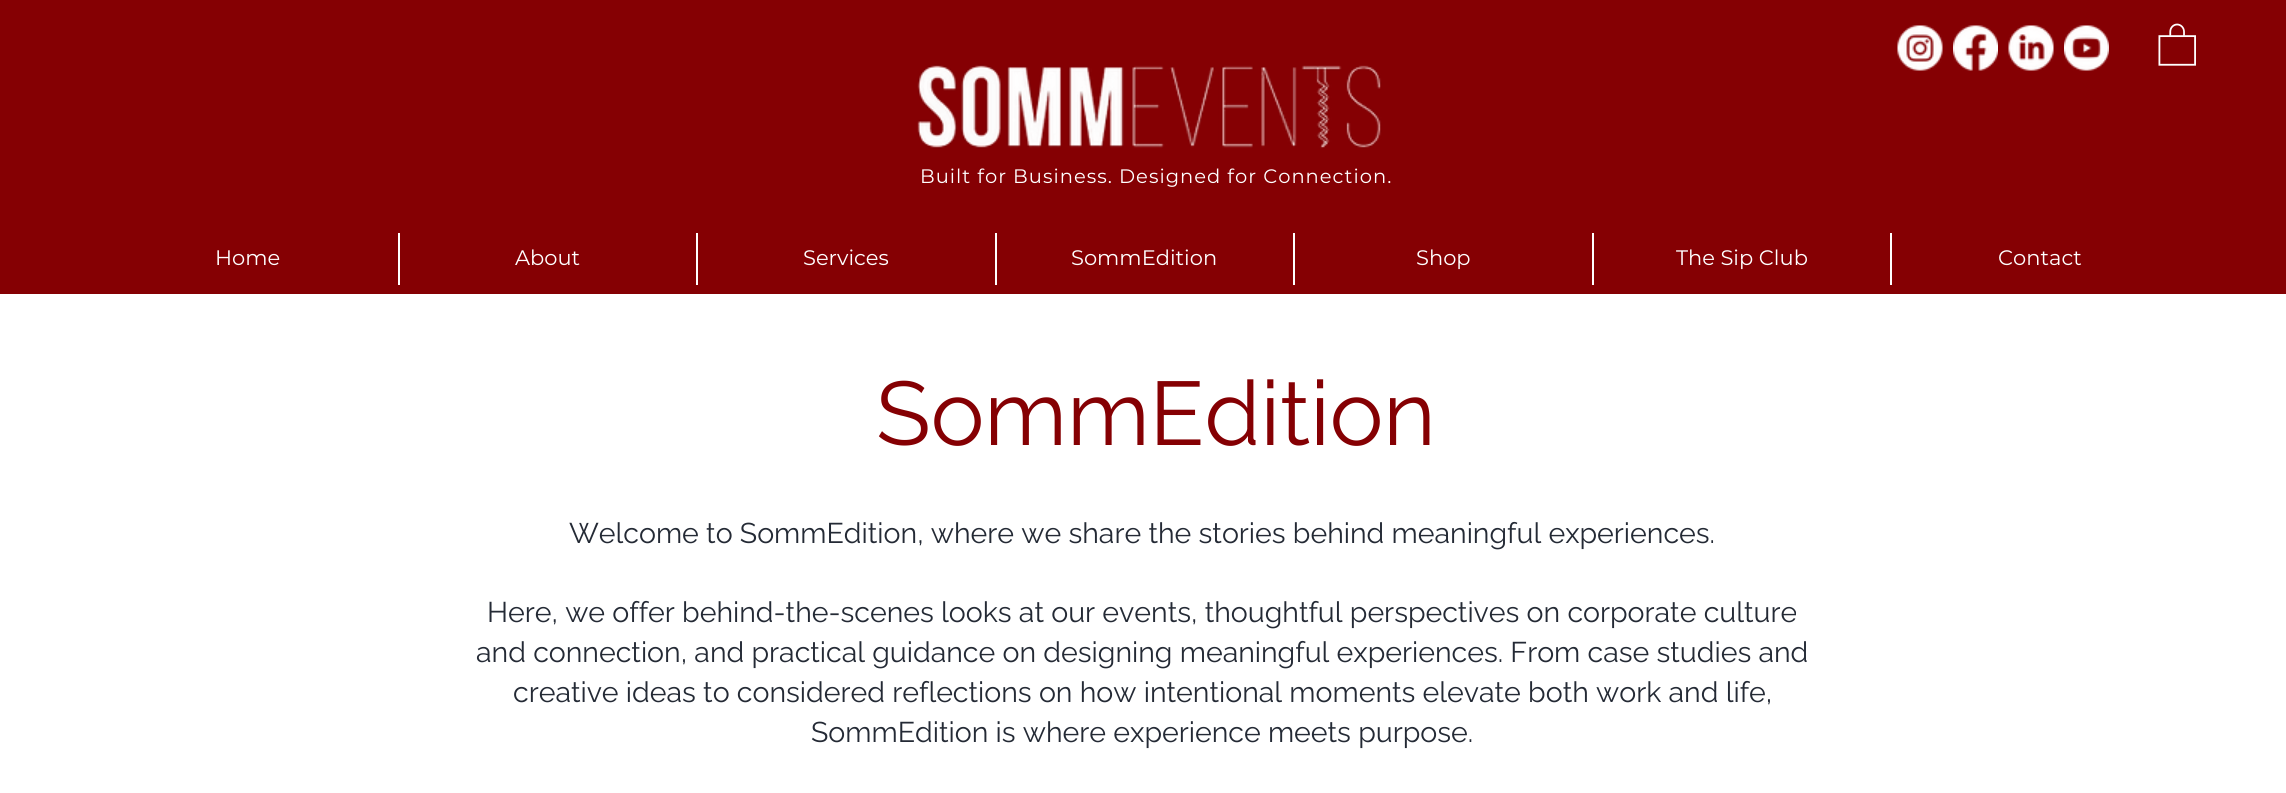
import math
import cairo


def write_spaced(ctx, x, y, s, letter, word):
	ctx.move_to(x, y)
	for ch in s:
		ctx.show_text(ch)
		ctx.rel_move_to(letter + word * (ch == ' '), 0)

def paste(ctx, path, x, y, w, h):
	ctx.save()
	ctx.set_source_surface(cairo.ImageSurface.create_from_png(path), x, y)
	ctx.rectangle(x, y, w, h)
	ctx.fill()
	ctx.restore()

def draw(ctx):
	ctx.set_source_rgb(1, 1, 1)
	ctx.paint()
	ctx.set_source_rgb(0.522, 0, 0.012)
	ctx.rectangle(0, 0, 2286, 294)
	ctx.fill()
	paste(ctx, 'media/1.png', 1897, 25, 46, 46)
	paste(ctx, 'media/2.png', 1953, 25, 45, 46)
	paste(ctx, 'media/3.png', 2008, 25, 46, 46)
	paste(ctx, 'media/4.png', 2064, 25, 45, 46)
	paste(ctx, 'media/5.png', 2158, 23, 38, 43)
	paste(ctx, 'media/6.png', 917, 64, 465, 85)
	ctx.select_font_face('Montserrat')
	ctx.set_font_size(19.5)
	ctx.set_source_rgb(1, 1, 1)
	write_spaced(ctx, 920, 183, 'Built for Business. Designed for Connection.', 1, 0)
	ctx.set_font_size(21)
	ctx.move_to(215, 265)
	ctx.show_text('Home')
	ctx.rectangle(398, 233, 2, 52)
	ctx.fill()
	ctx.move_to(515, 265)
	ctx.show_text('About')
	ctx.rectangle(696, 233, 2, 52)
	ctx.fill()
	ctx.move_to(803, 265)
	ctx.show_text('Services')
	ctx.rectangle(995, 233, 2, 52)
	ctx.fill()
	ctx.move_to(1071, 265)
	ctx.show_text('SommEdition')
	ctx.rectangle(1293, 233, 2, 52)
	ctx.fill()
	ctx.move_to(1416, 265)
	ctx.show_text('Shop')
	ctx.rectangle(1592, 233, 2, 52)
	ctx.fill()
	ctx.move_to(1676, 265)
	ctx.show_text('The Sip Club')
	ctx.rectangle(1890, 233, 2, 52)
	ctx.fill()
	ctx.move_to(1998, 265)
	ctx.show_text('Contact')
	ctx.select_font_face('Raleway')
	ctx.set_font_size(90)
	ctx.set_source_rgb(0.522, 0, 0.012)
	ctx.move_to(876, 445)
	ctx.show_text('SommEdition')
	ctx.set_font_size(28.5)
	ctx.set_source_rgb(0.141, 0.165, 0.208)
	for x, y, s in [
		(569, 543, 'Welcome to SommEdition, where we share the stories behind meaningful experiences.'),
		(487, 622, 'Here, we offer behind-the-scenes looks at our events, thoughtful perspectives on corporate culture'),
		(476, 662, 'and connection, and practical guidance on designing meaningful experiences. From case studies and'),
		(513, 702, 'creative ideas to considered reflections on how intentional moments elevate both work and life,'),
		(811, 742, 'SommEdition is where experience meets purpose.'),
	]:
		ctx.move_to(x, y)
		ctx.show_text(s)


surface = cairo.ImageSurface(cairo.FORMAT_RGB24, 2286, 793)
ctx = cairo.Context(surface)
options = cairo.FontOptions()
options.set_hint_metrics(cairo.HINT_METRICS_OFF)
options.set_hint_style(cairo.HINT_STYLE_NONE)
ctx.set_font_options(options)
ctx.set_miter_limit(4)
draw(ctx)
surface.write_to_png('image.png')
